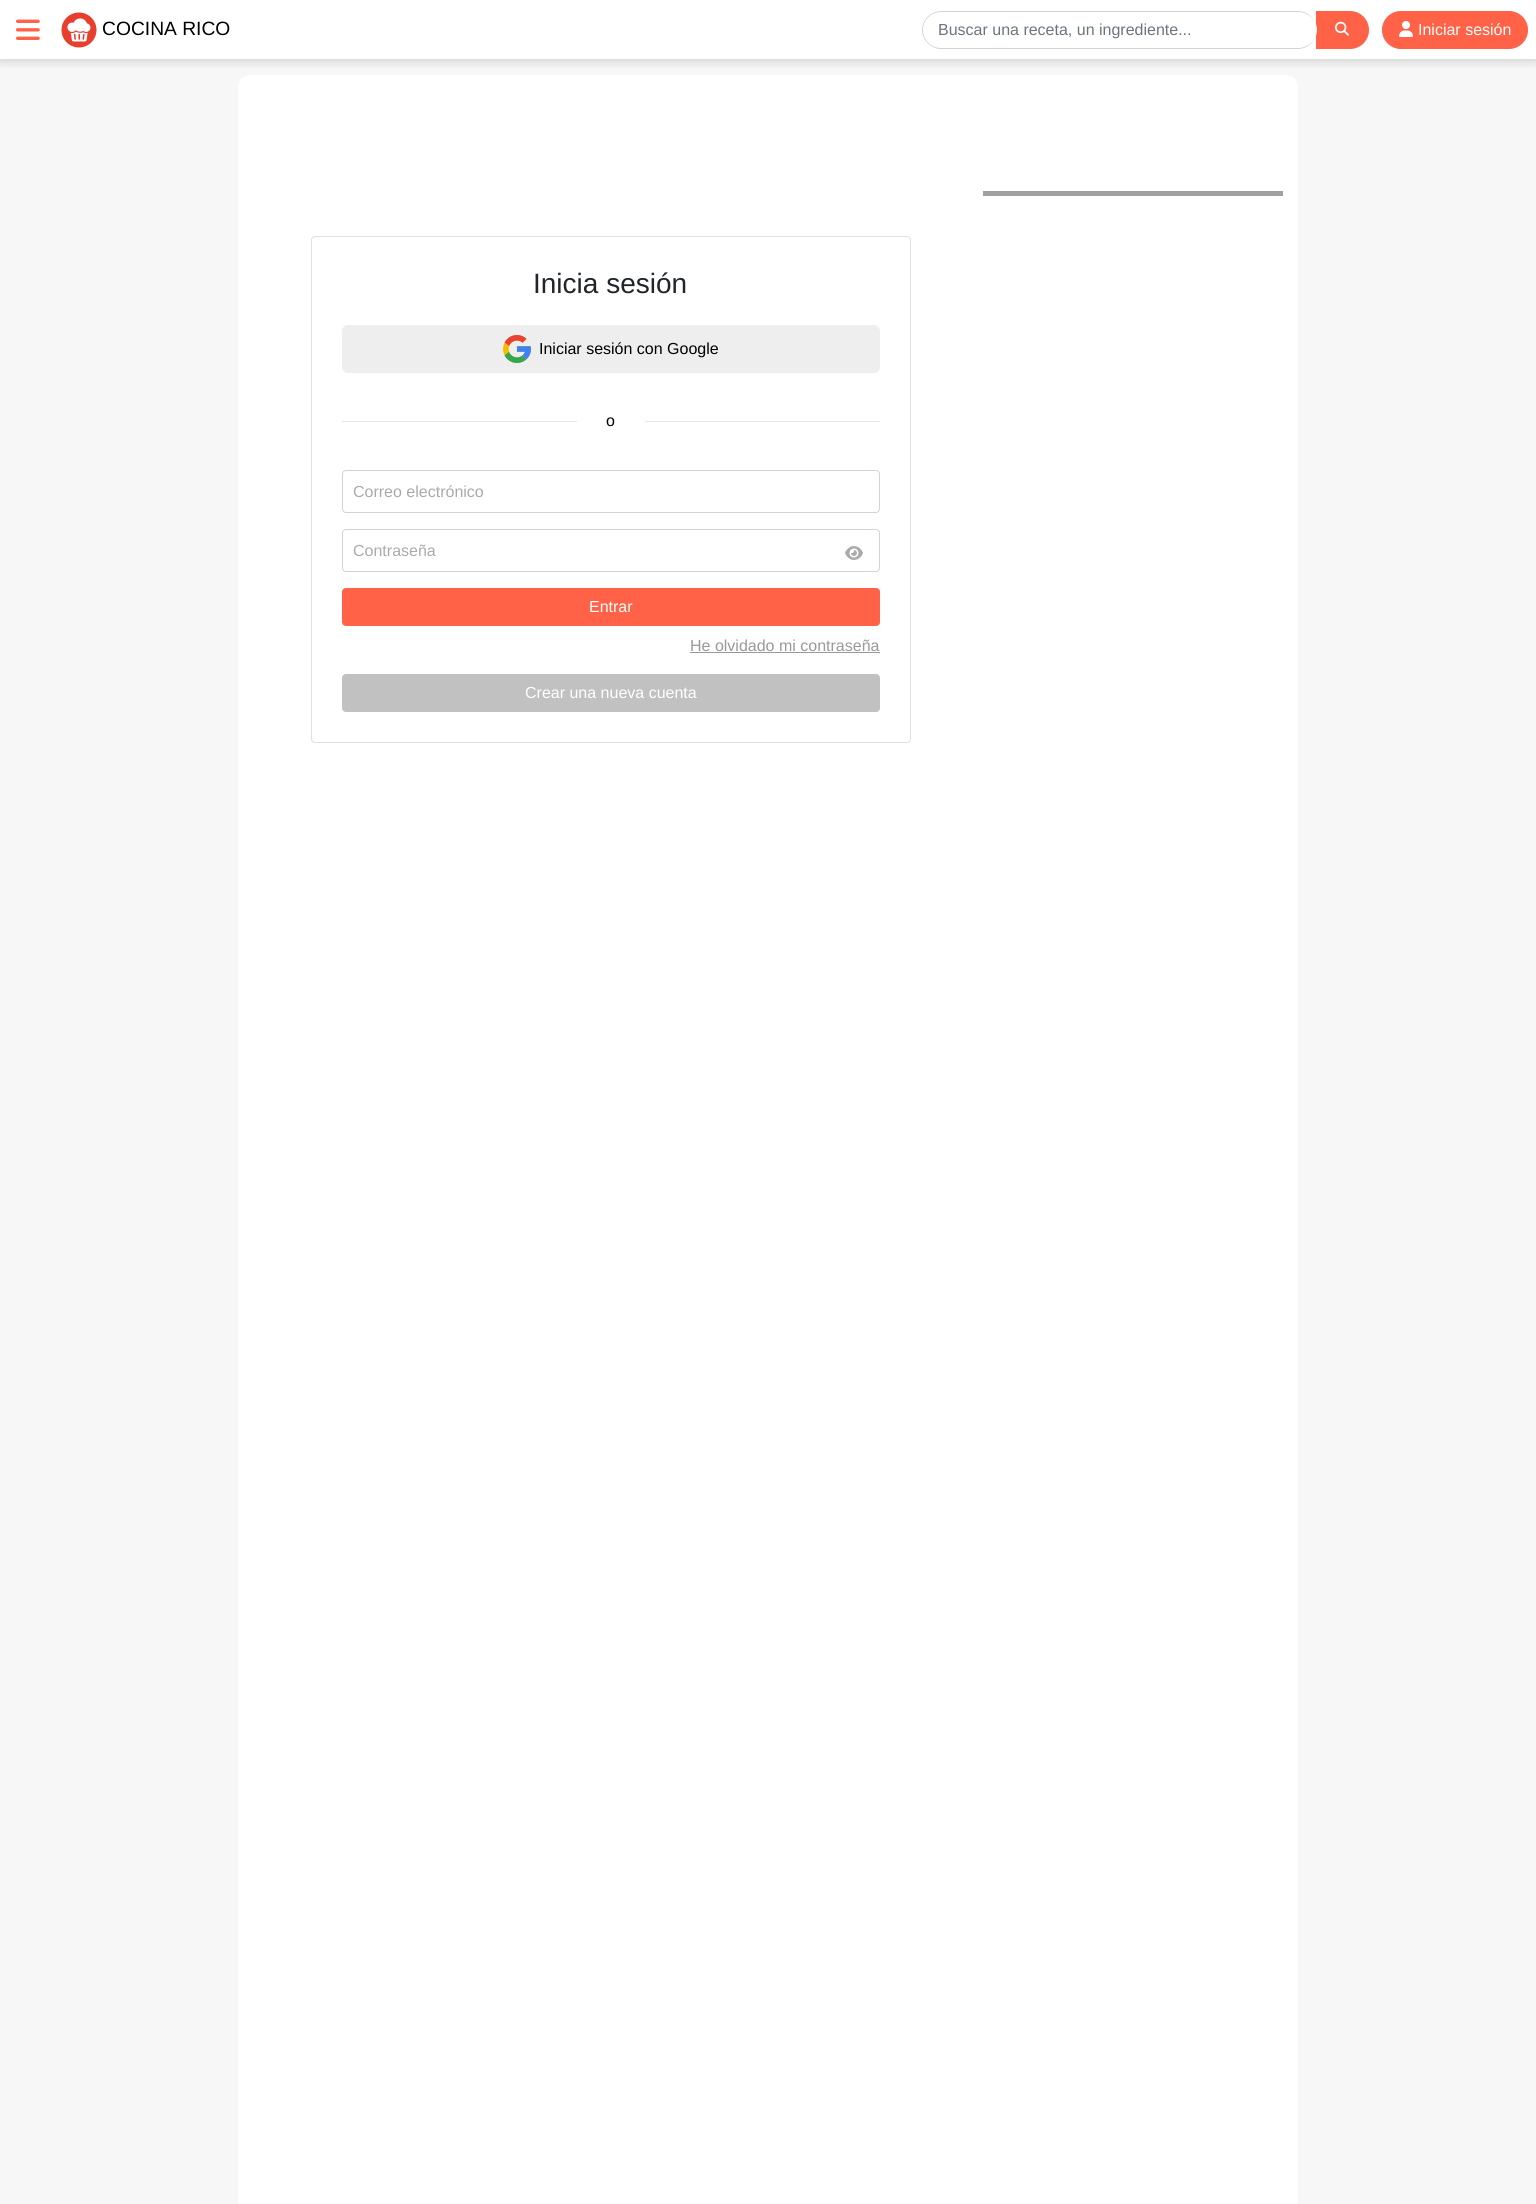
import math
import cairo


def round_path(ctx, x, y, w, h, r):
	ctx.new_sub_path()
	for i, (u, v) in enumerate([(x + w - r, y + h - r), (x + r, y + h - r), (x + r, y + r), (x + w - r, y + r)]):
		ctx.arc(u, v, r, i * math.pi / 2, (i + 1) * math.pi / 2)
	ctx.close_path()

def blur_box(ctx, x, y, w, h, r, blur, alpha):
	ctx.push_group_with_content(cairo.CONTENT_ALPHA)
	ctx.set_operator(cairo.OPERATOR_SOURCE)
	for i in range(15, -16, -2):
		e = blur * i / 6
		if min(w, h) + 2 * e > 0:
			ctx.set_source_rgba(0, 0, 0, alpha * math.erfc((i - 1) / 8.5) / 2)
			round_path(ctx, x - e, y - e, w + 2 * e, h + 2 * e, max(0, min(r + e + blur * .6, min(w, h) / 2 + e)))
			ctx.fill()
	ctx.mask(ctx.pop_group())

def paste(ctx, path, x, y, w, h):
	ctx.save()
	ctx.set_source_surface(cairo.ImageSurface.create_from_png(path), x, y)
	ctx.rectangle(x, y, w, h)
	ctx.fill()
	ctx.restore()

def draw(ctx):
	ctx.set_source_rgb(0.965, 0.965, 0.965)
	ctx.paint()
	ctx.set_source_rgb(1, 1, 1)
	ctx.rectangle(0, 0, 1536, 59)
	ctx.fill()
	round_path(ctx, 238, 75, 1060, 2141, 12)
	ctx.fill()
	ctx.save()
	ctx.rectangle(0, 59, 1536, 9)
	ctx.clip()
	ctx.set_source_rgb(0, 0, 0)
	blur_box(ctx, 0, 1, 1536, 59, 0, 6, 0.2)
	ctx.restore()
	paste(ctx, 'media/1.png', 16, 19, 24, 21)
	paste(ctx, 'media/2.png', 61, 12, 36, 36)
	ctx.select_font_face('Liberation Sans')
	ctx.set_font_size(19.25)
	ctx.set_source_rgb(0, 0, 0)
	ctx.move_to(102, 35)
	ctx.show_text('COCINA RICO')
	ctx.set_source_rgb(1, 0.384, 0.278)
	ctx.new_path()
	ctx.move_to(1316, 11)
	ctx.line_to(1350, 11)
	ctx.curve_to(1360.5, 11, 1369, 19.5, 1369, 30)
	ctx.curve_to(1369, 40.5, 1360.5, 49, 1350, 49)
	ctx.line_to(1316, 49)
	ctx.close_path()
	ctx.fill()
	ctx.set_source_rgb(1, 1, 1)
	ctx.new_path()
	ctx.move_to(941, 12)
	ctx.line_to(1298, 12)
	ctx.curve_to(1308, 12, 1317, 20, 1317, 30)
	ctx.curve_to(1317, 40, 1308, 48, 1298, 48)
	ctx.line_to(941, 48)
	ctx.curve_to(931, 48, 923, 40, 923, 30)
	ctx.curve_to(923, 20, 931, 12, 941, 12)
	ctx.close_path()
	ctx.fill()
	ctx.set_source_rgb(0.808, 0.831, 0.855)
	ctx.set_fill_rule(cairo.FILL_RULE_EVEN_ODD)
	ctx.new_path()
	ctx.move_to(941, 11)
	ctx.line_to(1298, 11)
	ctx.curve_to(1308, 11, 1317, 20, 1317, 30)
	ctx.curve_to(1317, 40, 1308, 49, 1298, 49)
	ctx.line_to(941, 49)
	ctx.curve_to(931, 49, 922, 40, 922, 30)
	ctx.curve_to(922, 20, 931, 11, 941, 11)
	ctx.close_path()
	ctx.move_to(941, 12)
	ctx.line_to(1298, 12)
	ctx.curve_to(1308, 12, 1317, 20, 1317, 30)
	ctx.curve_to(1317, 40, 1308, 48, 1298, 48)
	ctx.line_to(941, 48)
	ctx.curve_to(931, 48, 923, 40, 923, 30)
	ctx.curve_to(923, 20, 931, 12, 941, 12)
	ctx.close_path()
	ctx.fill()
	ctx.set_font_size(16)
	ctx.set_source_rgb(0.424, 0.459, 0.49)
	ctx.move_to(938, 35)
	ctx.show_text('Buscar una receta, un ingrediente...')
	paste(ctx, 'media/3.png', 1335, 21, 14, 15)
	ctx.set_source_rgb(1, 0.384, 0.278)
	round_path(ctx, 1382.5, 11.5, 145, 37, 18.5)
	ctx.fill_preserve()
	ctx.set_line_width(1)
	ctx.stroke()
	paste(ctx, 'media/4.png', 1399, 21, 14, 16)
	ctx.set_source_rgb(1, 1, 1)
	ctx.move_to(1418, 35)
	ctx.show_text('Iniciar sesión')
	ctx.set_source_rgb(0.627, 0.627, 0.627)
	ctx.rectangle(983, 191, 300, 5)
	ctx.fill()
	round_path(ctx, 311.5, 236.5, 599, 506, 3.5)
	ctx.set_source_rgb(0.875, 0.875, 0.875)
	ctx.stroke()
	ctx.set_font_size(28)
	ctx.set_source_rgb(0.129, 0.145, 0.161)
	ctx.move_to(533, 293)
	ctx.show_text('Inicia sesión')
	ctx.set_source_rgb(0.933, 0.933, 0.933)
	round_path(ctx, 342, 325, 538, 48, 6)
	ctx.fill()
	paste(ctx, 'media/5.png', 503, 335, 28, 28)
	ctx.set_font_size(16)
	ctx.set_source_rgb(0, 0, 0)
	ctx.move_to(539, 354)
	ctx.show_text('Iniciar sesión con Google')
	ctx.set_source_rgb(0.902, 0.902, 0.902)
	ctx.rectangle(342, 421, 538, 1)
	ctx.fill()
	ctx.set_source_rgb(1, 1, 1)
	ctx.rectangle(577, 421, 68, 1)
	ctx.fill()
	ctx.set_source_rgb(0, 0, 0)
	ctx.move_to(606, 426)
	ctx.show_text('o')
	round_path(ctx, 342.5, 470.5, 537, 42, 3.5)
	ctx.set_source_rgb(0.808, 0.831, 0.855)
	ctx.stroke()
	ctx.set_source_rgb(0.667, 0.667, 0.667)
	ctx.move_to(353, 497)
	ctx.show_text('Correo electrónico')
	round_path(ctx, 342.5, 529.5, 537, 42, 3.5)
	ctx.set_source_rgb(0.808, 0.831, 0.855)
	ctx.stroke()
	ctx.set_source_rgb(0.667, 0.667, 0.667)
	ctx.move_to(353, 556)
	ctx.show_text('Contraseña')
	paste(ctx, 'media/6.png', 845, 546, 18, 14)
	ctx.set_source_rgb(1, 0.384, 0.278)
	round_path(ctx, 342.5, 588.5, 537, 37, 3.5)
	ctx.fill_preserve()
	ctx.stroke()
	ctx.set_source_rgb(1, 1, 1)
	ctx.move_to(589, 612)
	ctx.show_text('Entrar')
	ctx.set_source_rgb(0.604, 0.6, 0.6)
	ctx.move_to(690, 651)
	ctx.show_text('He olvidado mi contraseña')
	ctx.rectangle(690, 652, 190, 1)
	ctx.fill()
	ctx.set_source_rgb(0.757, 0.757, 0.757)
	round_path(ctx, 342.5, 674.5, 537, 37, 3.5)
	ctx.fill_preserve()
	ctx.stroke()
	ctx.set_source_rgb(1, 1, 1)
	ctx.move_to(525, 698)
	ctx.show_text('Crear una nueva cuenta')


surface = cairo.ImageSurface(cairo.FORMAT_RGB24, 1536, 2204)
ctx = cairo.Context(surface)
options = cairo.FontOptions()
options.set_hint_metrics(cairo.HINT_METRICS_OFF)
options.set_hint_style(cairo.HINT_STYLE_NONE)
ctx.set_font_options(options)
ctx.set_miter_limit(4)
draw(ctx)
surface.write_to_png('image.png')
